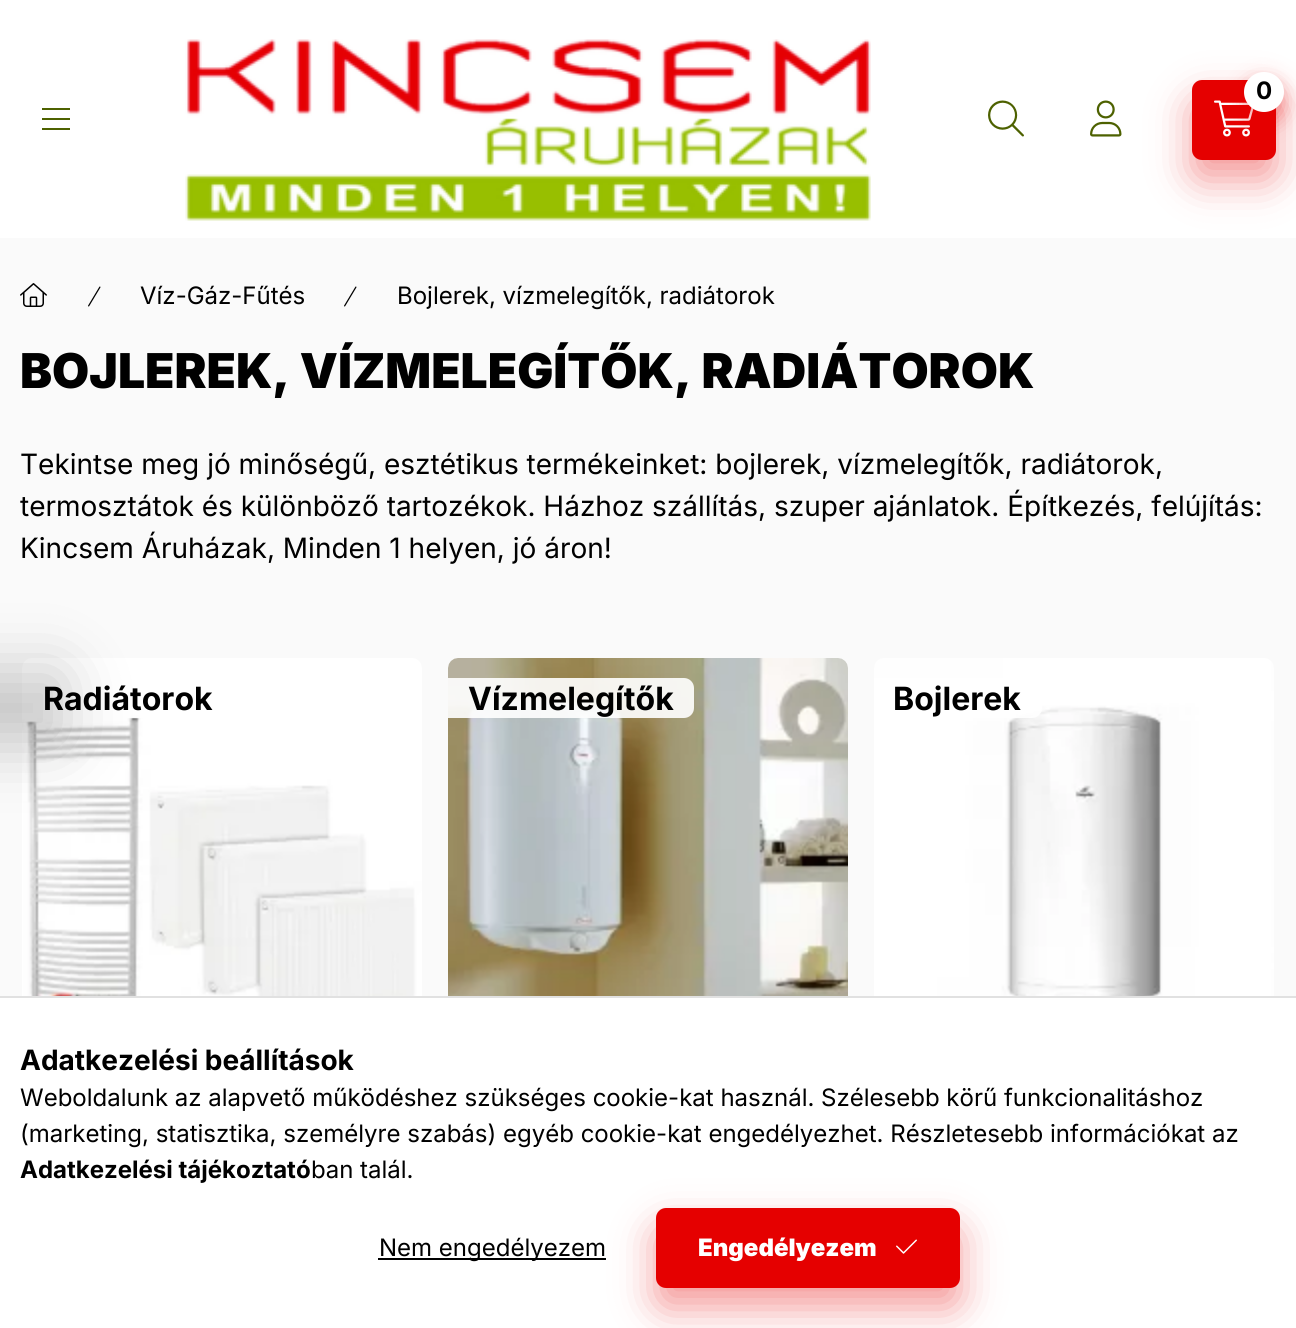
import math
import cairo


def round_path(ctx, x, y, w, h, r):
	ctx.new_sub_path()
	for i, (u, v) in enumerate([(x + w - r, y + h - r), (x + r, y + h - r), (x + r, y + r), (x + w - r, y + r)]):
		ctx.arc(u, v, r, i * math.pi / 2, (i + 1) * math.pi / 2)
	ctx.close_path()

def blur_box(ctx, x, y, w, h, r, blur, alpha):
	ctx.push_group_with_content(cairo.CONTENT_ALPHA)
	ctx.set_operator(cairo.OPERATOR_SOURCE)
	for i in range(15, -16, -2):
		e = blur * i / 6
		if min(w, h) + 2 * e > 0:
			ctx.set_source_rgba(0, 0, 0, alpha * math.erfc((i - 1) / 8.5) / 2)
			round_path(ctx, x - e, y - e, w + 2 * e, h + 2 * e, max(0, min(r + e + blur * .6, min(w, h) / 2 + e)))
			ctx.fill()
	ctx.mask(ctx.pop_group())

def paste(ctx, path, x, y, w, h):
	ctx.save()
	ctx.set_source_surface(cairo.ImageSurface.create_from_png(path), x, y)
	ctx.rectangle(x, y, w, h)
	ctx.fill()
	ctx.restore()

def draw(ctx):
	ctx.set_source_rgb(0.98, 0.98, 0.98)
	ctx.paint()
	ctx.set_source_rgb(1, 1, 1)
	ctx.rectangle(0, 0, 1296, 238)
	ctx.fill()
	ctx.set_source_rgb(0.302, 0.38, 0)
	ctx.rectangle(42, 108, 28, 2)
	ctx.rectangle(42, 118, 28, 2)
	ctx.rectangle(42, 128, 28, 2)
	ctx.fill()
	paste(ctx, 'media/1.png', 185, 39, 686, 182)
	ctx.set_source_rgb(0.898, 0, 0)
	blur_box(ctx, 1192, 100, 84, 80, 10, 20, 0.4)
	ctx.set_source_rgb(0.898, 0, 0)
	round_path(ctx, 1192, 80, 84, 80, 10)
	ctx.fill()
	paste(ctx, 'media/2.png', 1214, 100, 40, 37)
	ctx.set_source_rgb(0.898, 0, 0)
	blur_box(ctx, 1244, 82, 40, 40, 20, 10, 0.4)
	ctx.set_source_rgb(1, 1, 1)
	ctx.arc(1264, 92, 20, 0, 2 * math.pi)
	ctx.fill()
	ctx.select_font_face('Inter', cairo.FONT_SLANT_NORMAL, cairo.FONT_WEIGHT_BOLD)
	ctx.set_font_size(24)
	ctx.set_source_rgb(0, 0, 0)
	ctx.move_to(1256, 99)
	ctx.show_text('0')
	paste(ctx, 'media/3.png', 988, 100, 36, 37)
	paste(ctx, 'media/4.png', 1090, 100, 32, 37)
	paste(ctx, 'media/5.png', 20, 283, 27, 24)
	paste(ctx, 'media/6.png', 88, 286, 13, 21)
	ctx.select_font_face('Inter')
	ctx.move_to(140, 304)
	ctx.show_text('Víz-Gáz-Fűtés')
	paste(ctx, 'media/6.png', 344, 286, 13, 21)
	ctx.move_to(397, 304)
	ctx.show_text('Bojlerek, vízmelegítők, radiátorok')
	ctx.select_font_face('Inter Black')
	ctx.set_font_size(48)
	ctx.move_to(20, 388)
	ctx.show_text('BOJLEREK, VÍZMELEGÍTŐK, RADIÁTOROK')
	ctx.select_font_face('Inter')
	ctx.set_font_size(28)
	for x, y, s in [
		(20, 474, 'Tekintse meg jó minőségű, esztétikus termékeinket: bojlerek, vízmelegítők, radiátorok,'),
		(20, 516, 'termosztátok és különböző tartozékok. Házhoz szállítás, szuper ajánlatok. Építkezés, felújítás:'),
		(20, 558, 'Kincsem Áruházak, Minden 1 helyen, jó áron!'),
	]:
		ctx.move_to(x, y)
		ctx.show_text(s)
	paste(ctx, 'media/7.png', 22, 658, 400, 338)
	ctx.set_source_rgba(1, 1, 1, 0.9)
	ctx.new_path()
	ctx.move_to(22, 678)
	ctx.line_to(222, 678)
	ctx.curve_to(227.5, 678, 232, 682.5, 232, 688)
	ctx.line_to(232, 708)
	ctx.curve_to(232, 713.5, 227.5, 718, 222, 718)
	ctx.line_to(22, 718)
	ctx.close_path()
	ctx.fill()
	ctx.select_font_face('Inter', cairo.FONT_SLANT_NORMAL, cairo.FONT_WEIGHT_BOLD)
	ctx.set_font_size(32)
	ctx.set_source_rgb(0, 0, 0)
	ctx.move_to(43, 710)
	ctx.show_text('Radiátorok')
	paste(ctx, 'media/8.png', 448, 658, 400, 338)
	ctx.set_source_rgba(1, 1, 1, 0.9)
	ctx.new_path()
	ctx.move_to(448, 678)
	ctx.line_to(684, 678)
	ctx.curve_to(689.5, 678, 694, 682.5, 694, 688)
	ctx.line_to(694, 708)
	ctx.curve_to(694, 713.5, 689.5, 718, 684, 718)
	ctx.line_to(448, 718)
	ctx.close_path()
	ctx.fill()
	ctx.set_source_rgb(0, 0, 0)
	ctx.move_to(468, 710)
	ctx.show_text('Vízmelegítők')
	paste(ctx, 'media/9.png', 874, 658, 400, 338)
	ctx.set_source_rgba(1, 1, 1, 0.9)
	ctx.new_path()
	ctx.move_to(874, 678)
	ctx.line_to(1032, 678)
	ctx.curve_to(1037.5, 678, 1042, 682.5, 1042, 688)
	ctx.line_to(1042, 708)
	ctx.curve_to(1042, 713.5, 1037.5, 718, 1032, 718)
	ctx.line_to(874, 718)
	ctx.close_path()
	ctx.fill()
	ctx.set_source_rgb(0, 0, 0)
	ctx.move_to(893, 710)
	ctx.show_text('Bojlerek')
	ctx.set_source_rgb(0, 0, 0)
	blur_box(ctx, -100, 668, 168, 80, 10, 30, 0.2)
	ctx.set_source_rgb(1, 1, 1)
	ctx.rectangle(0, 998, 1296, 330)
	ctx.fill()
	ctx.set_source_rgb(0.882, 0.882, 0.882)
	ctx.rectangle(0, 996, 1296, 2)
	ctx.fill()
	ctx.set_font_size(28)
	ctx.set_source_rgb(0, 0, 0)
	ctx.move_to(20, 1070)
	ctx.show_text('Adatkezelési beállítások')
	ctx.select_font_face('Inter')
	ctx.set_font_size(24)
	ctx.move_to(20, 1106)
	ctx.show_text('Weboldalunk az alapvető működéshez szükséges cookie-kat használ. Szélesebb körű funkcionalitáshoz')
	ctx.move_to(20, 1142)
	ctx.show_text('(marketing, statisztika, személyre szabás) egyéb cookie-kat engedélyezhet. Részletesebb információkat az')
	ctx.select_font_face('Inter', cairo.FONT_SLANT_NORMAL, cairo.FONT_WEIGHT_BOLD)
	ctx.move_to(20, 1178)
	ctx.show_text('Adatkezelési tájékoztató')
	ctx.select_font_face('Inter')
	ctx.move_to(311, 1178)
	ctx.show_text('ban talál.')
	ctx.rectangle(378, 1258, 228, 2)
	ctx.fill()
	ctx.move_to(379, 1256)
	ctx.show_text('Nem engedélyezem')
	ctx.set_source_rgb(0.898, 0, 0)
	blur_box(ctx, 656, 1228, 304, 80, 10, 20, 0.4)
	ctx.set_source_rgb(0.898, 0, 0)
	round_path(ctx, 657, 1209, 302, 78, 9)
	ctx.fill_preserve()
	ctx.stroke()
	ctx.select_font_face('Inter Black')
	ctx.set_source_rgb(1, 1, 1)
	ctx.move_to(698, 1256)
	ctx.show_text('Engedélyezem')
	paste(ctx, 'media/10.png', 896, 1239, 21, 15)


surface = cairo.ImageSurface(cairo.FORMAT_RGB24, 1296, 1328)
ctx = cairo.Context(surface)
options = cairo.FontOptions()
options.set_hint_metrics(cairo.HINT_METRICS_OFF)
options.set_hint_style(cairo.HINT_STYLE_NONE)
ctx.set_font_options(options)
ctx.set_miter_limit(4)
draw(ctx)
surface.write_to_png('image.png')
